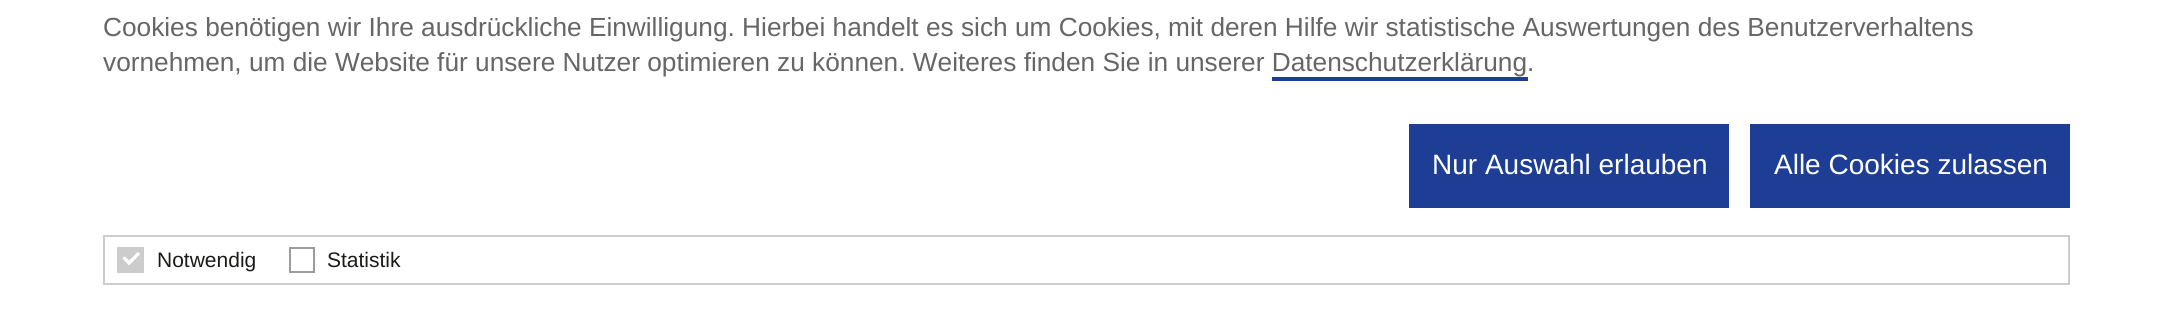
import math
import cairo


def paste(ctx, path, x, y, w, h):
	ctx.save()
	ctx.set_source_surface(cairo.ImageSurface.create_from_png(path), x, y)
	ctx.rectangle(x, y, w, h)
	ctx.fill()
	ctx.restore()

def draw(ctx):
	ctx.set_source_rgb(1, 1, 1)
	ctx.paint()
	ctx.select_font_face('Liberation Sans')
	ctx.set_font_size(26.25)
	ctx.set_source_rgb(0.4, 0.4, 0.4)
	ctx.move_to(103, 36)
	ctx.show_text('Cookies benötigen wir Ihre ausdrückliche Einwilligung. Hierbei handelt es sich um Cookies, mit deren Hilfe wir statistische Auswertungen des Benutzerverhaltens')
	ctx.move_to(103, 71)
	ctx.show_text('vornehmen, um die Website für unsere Nutzer optimieren zu können. Weiteres finden Sie in unserer Datenschutzerklärung.')
	ctx.set_source_rgb(0.118, 0.243, 0.584)
	ctx.rectangle(1272, 77, 256, 4)
	ctx.fill()
	ctx.rectangle(1409, 124, 320, 84)
	ctx.fill()
	ctx.set_font_size(28)
	ctx.set_source_rgb(1, 1, 1)
	ctx.move_to(1432, 174)
	ctx.show_text('Nur Auswahl erlauben')
	ctx.set_source_rgb(0.118, 0.243, 0.584)
	ctx.rectangle(1750, 124, 320, 84)
	ctx.fill()
	ctx.set_source_rgb(1, 1, 1)
	ctx.move_to(1774, 174)
	ctx.show_text('Alle Cookies zulassen')
	ctx.rectangle(104, 236, 1965, 48)
	ctx.set_source_rgb(0.8, 0.8, 0.8)
	ctx.stroke()
	ctx.rectangle(117, 247, 27, 26)
	ctx.fill()
	paste(ctx, 'media/1.png', 122, 252, 18, 13)
	ctx.set_font_size(21)
	ctx.set_source_rgb(0.102, 0.102, 0.094)
	ctx.move_to(157, 267)
	ctx.show_text('Notwendig')
	ctx.rectangle(290, 248, 24, 24)
	ctx.set_source_rgb(0.608, 0.608, 0.608)
	ctx.stroke()
	ctx.set_source_rgb(0.102, 0.102, 0.094)
	ctx.move_to(327, 267)
	ctx.show_text('Statistik')


surface = cairo.ImageSurface(cairo.FORMAT_RGB24, 2173, 328)
ctx = cairo.Context(surface)
options = cairo.FontOptions()
options.set_hint_metrics(cairo.HINT_METRICS_OFF)
options.set_hint_style(cairo.HINT_STYLE_NONE)
ctx.set_font_options(options)
ctx.set_miter_limit(4)
draw(ctx)
surface.write_to_png('image.png')
